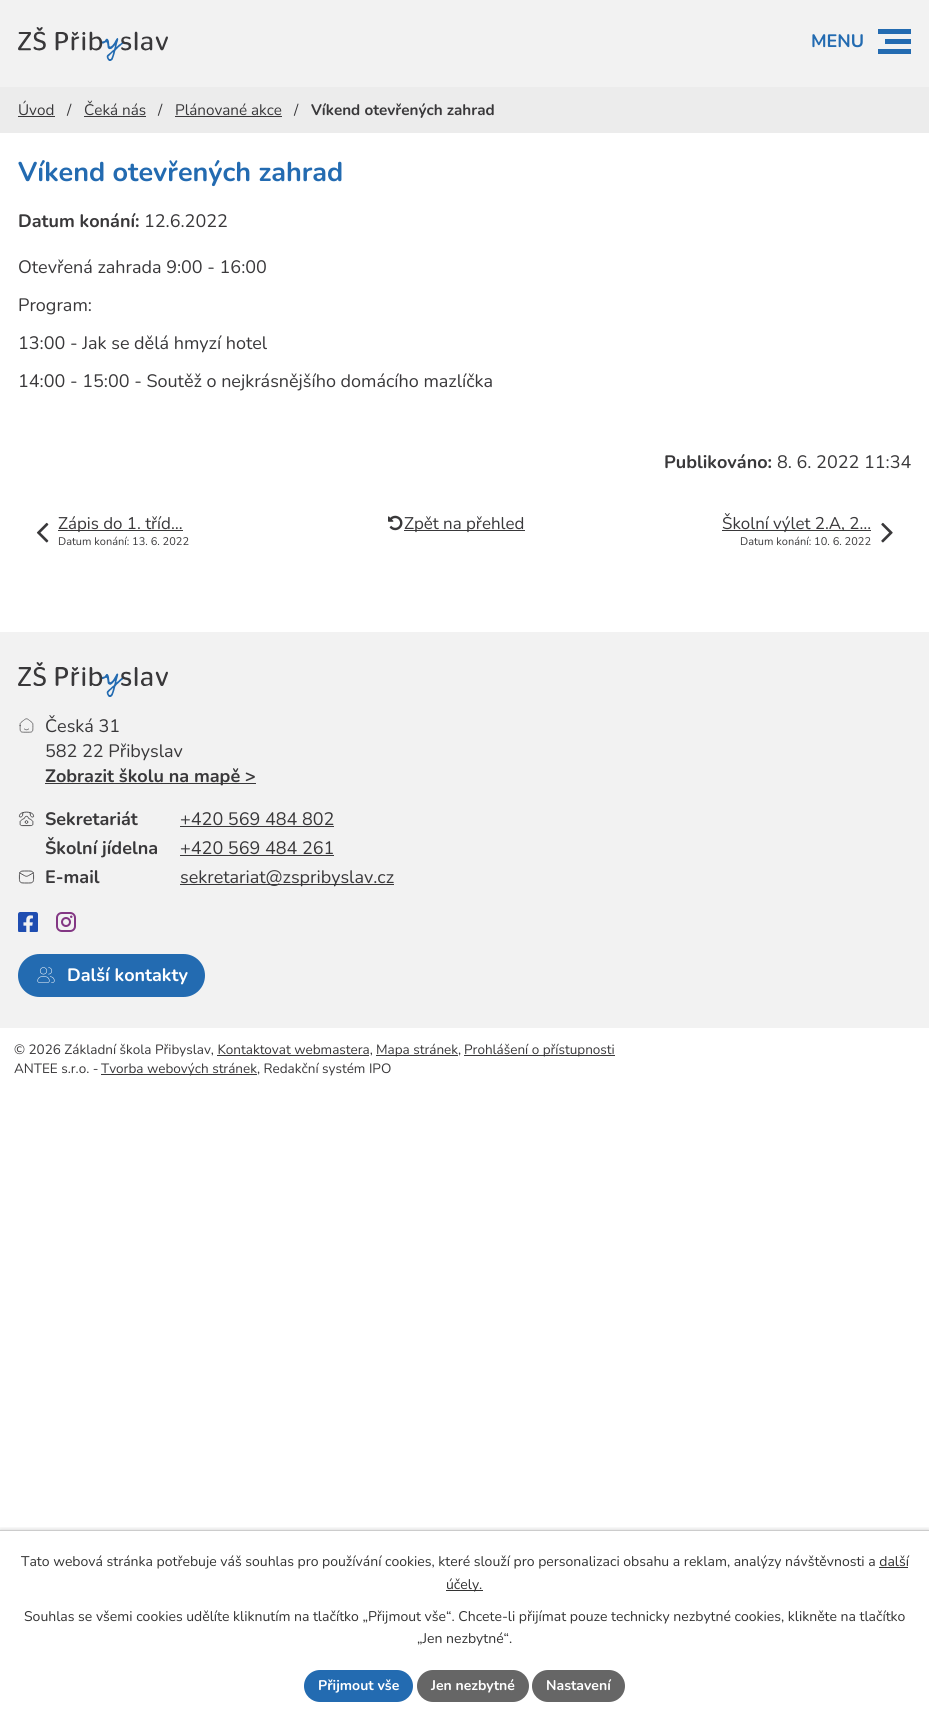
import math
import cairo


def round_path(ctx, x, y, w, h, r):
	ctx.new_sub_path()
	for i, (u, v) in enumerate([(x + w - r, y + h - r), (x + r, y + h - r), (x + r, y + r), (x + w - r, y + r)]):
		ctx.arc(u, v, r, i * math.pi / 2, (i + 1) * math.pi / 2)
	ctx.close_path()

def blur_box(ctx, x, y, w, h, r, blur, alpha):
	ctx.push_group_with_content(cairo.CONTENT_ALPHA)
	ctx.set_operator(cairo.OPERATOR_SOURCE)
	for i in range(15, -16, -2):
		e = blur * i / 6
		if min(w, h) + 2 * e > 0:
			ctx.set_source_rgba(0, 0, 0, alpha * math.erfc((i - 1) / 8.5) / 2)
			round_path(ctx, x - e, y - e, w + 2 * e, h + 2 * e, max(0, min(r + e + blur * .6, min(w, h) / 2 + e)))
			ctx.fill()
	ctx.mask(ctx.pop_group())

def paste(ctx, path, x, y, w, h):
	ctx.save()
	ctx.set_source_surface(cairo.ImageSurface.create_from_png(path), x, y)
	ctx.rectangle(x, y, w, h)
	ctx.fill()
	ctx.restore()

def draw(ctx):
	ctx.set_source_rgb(1, 1, 1)
	ctx.paint()
	ctx.set_source_rgb(0.949, 0.949, 0.949)
	ctx.rectangle(0, 0, 929, 87)
	ctx.fill()
	paste(ctx, 'media/1.png', 18, 27, 150, 34)
	ctx.select_font_face('Nunito', cairo.FONT_SLANT_NORMAL, cairo.FONT_WEIGHT_BOLD)
	ctx.set_font_size(18)
	ctx.set_source_rgb(0.137, 0.42, 0.694)
	ctx.move_to(811, 47)
	ctx.show_text('MENU')
	ctx.rectangle(878, 29, 33, 5)
	ctx.rectangle(885, 39, 26, 5)
	ctx.rectangle(878, 49, 33, 5)
	ctx.fill()
	ctx.set_source_rgb(0.922, 0.922, 0.922)
	ctx.rectangle(0, 87, 929, 46)
	ctx.fill()
	ctx.select_font_face('Nunito')
	ctx.set_font_size(15.25)
	ctx.set_source_rgb(0.224, 0.22, 0.227)
	ctx.move_to(18, 115)
	ctx.show_text('Úvod')
	ctx.rectangle(18, 116, 37, 1)
	ctx.fill()
	ctx.move_to(67, 115)
	ctx.show_text('/')
	ctx.move_to(84, 115)
	ctx.show_text('Čeká nás')
	ctx.rectangle(84, 116, 62, 1)
	ctx.fill()
	ctx.move_to(158, 115)
	ctx.show_text('/')
	ctx.move_to(175, 115)
	ctx.show_text('Plánované akce')
	ctx.rectangle(175, 116, 107, 1)
	ctx.fill()
	ctx.move_to(294, 115)
	ctx.show_text('/')
	ctx.select_font_face('Nunito', cairo.FONT_SLANT_NORMAL, cairo.FONT_WEIGHT_BOLD)
	ctx.move_to(311, 115)
	ctx.show_text('Víkend otevřených zahrad')
	ctx.set_font_size(27)
	ctx.set_source_rgb(0.137, 0.42, 0.694)
	ctx.move_to(18, 181)
	ctx.show_text('Víkend otevřených zahrad')
	ctx.set_font_size(18)
	ctx.set_source_rgb(0.224, 0.22, 0.227)
	ctx.move_to(18, 227)
	ctx.show_text('Datum konání:')
	ctx.select_font_face('Nunito')
	for x, y, s in [
		(144, 227, '12.6.2022'),
		(18, 273, 'Otevřená zahrada 9:00 - 16:00'),
		(18, 311, 'Program:'),
		(18, 349, '13:00 - Jak se dělá hmyzí hotel'),
		(18, 387, '14:00 - 15:00 - Soutěž o nejkrásnějšího domácího mazlíčka'),
	]:
		ctx.move_to(x, y)
		ctx.show_text(s)
	ctx.select_font_face('Nunito', cairo.FONT_SLANT_NORMAL, cairo.FONT_WEIGHT_BOLD)
	ctx.move_to(664, 468)
	ctx.show_text('Publikováno:')
	ctx.select_font_face('Nunito')
	ctx.move_to(777, 468)
	ctx.show_text('8. 6. 2022 11:34')
	paste(ctx, 'media/2.png', 36, 522, 13, 21)
	ctx.rectangle(58, 530, 125, 1)
	ctx.fill()
	ctx.set_font_size(16.9)
	ctx.move_to(58, 529)
	ctx.show_text('Zápis do 1. tříd…')
	ctx.set_font_size(11)
	ctx.move_to(58, 545)
	ctx.show_text('Datum konání: 13. 6. 2022')
	paste(ctx, 'media/3.png', 388, 515, 15, 16)
	ctx.rectangle(404, 530, 121, 1)
	ctx.fill()
	ctx.set_font_size(16.9)
	ctx.move_to(404, 529)
	ctx.show_text('Zpět na přehled')
	ctx.rectangle(722, 530, 149, 1)
	ctx.fill()
	ctx.move_to(722, 529)
	ctx.show_text('Školní výlet 2.A, 2…')
	ctx.set_font_size(11)
	ctx.move_to(740, 545)
	ctx.show_text('Datum konání: 10. 6. 2022')
	paste(ctx, 'media/4.png', 881, 522, 12, 21)
	ctx.set_source_rgb(0.949, 0.949, 0.949)
	ctx.rectangle(0, 632, 929, 396)
	ctx.fill()
	paste(ctx, 'media/5.png', 18, 662, 150, 35)
	paste(ctx, 'media/6.png', 19, 718, 15, 15)
	ctx.set_font_size(18)
	ctx.set_source_rgb(0.224, 0.22, 0.227)
	ctx.move_to(45, 732)
	ctx.show_text('Česká 31')
	ctx.move_to(45, 757)
	ctx.show_text('582 22 Přibyslav')
	ctx.rectangle(45, 783, 211, 1)
	ctx.fill()
	ctx.select_font_face('Nunito', cairo.FONT_SLANT_NORMAL, cairo.FONT_WEIGHT_BOLD)
	ctx.move_to(45, 782)
	ctx.show_text('Zobrazit školu na mapě >')
	paste(ctx, 'media/7.png', 18, 811, 17, 16)
	ctx.move_to(45, 825)
	ctx.show_text('Sekretariát')
	ctx.select_font_face('Nunito')
	ctx.move_to(180, 825)
	ctx.show_text('+420 569 484 802')
	ctx.rectangle(180, 826, 154, 1)
	ctx.fill()
	ctx.select_font_face('Nunito', cairo.FONT_SLANT_NORMAL, cairo.FONT_WEIGHT_BOLD)
	ctx.move_to(45, 854)
	ctx.show_text('Školní jídelna')
	ctx.select_font_face('Nunito')
	ctx.move_to(180, 854)
	ctx.show_text('+420 569 484 261')
	ctx.rectangle(180, 855, 154, 1)
	ctx.fill()
	paste(ctx, 'media/8.png', 18, 870, 17, 14)
	ctx.select_font_face('Nunito', cairo.FONT_SLANT_NORMAL, cairo.FONT_WEIGHT_BOLD)
	ctx.move_to(45, 883)
	ctx.show_text('E-mail')
	ctx.rectangle(180, 884, 214, 1)
	ctx.fill()
	ctx.select_font_face('Nunito')
	ctx.move_to(180, 883)
	ctx.show_text('sekretariat@zspribyslav.cz')
	paste(ctx, 'media/9.png', 18, 912, 20, 20)
	paste(ctx, 'media/10.png', 56, 912, 20, 20)
	ctx.set_source_rgb(0.137, 0.42, 0.694)
	round_path(ctx, 18, 954, 187, 43, 21.5)
	ctx.fill()
	paste(ctx, 'media/11.png', 37, 967, 18, 16)
	ctx.select_font_face('Nunito', cairo.FONT_SLANT_NORMAL, cairo.FONT_WEIGHT_BOLD)
	ctx.set_source_rgb(1, 1, 1)
	ctx.move_to(67, 981)
	ctx.show_text('Další kontakty')
	ctx.select_font_face('Nunito')
	ctx.set_font_size(13.5)
	ctx.set_source_rgb(0.224, 0.22, 0.227)
	ctx.move_to(14, 1054)
	ctx.show_text('© 2026 Základní škola Přibyslav, Kontaktovat webmastera,')
	ctx.rectangle(376, 1055, 82, 1)
	ctx.fill()
	ctx.move_to(376, 1054)
	ctx.show_text('Mapa stránek,')
	ctx.rectangle(464, 1055, 151, 1)
	ctx.fill()
	ctx.move_to(464, 1054)
	ctx.show_text('Prohlášení o přístupnosti')
	ctx.rectangle(217, 1055, 152, 1)
	ctx.fill()
	ctx.move_to(14, 1073)
	ctx.show_text('ANTEE s.r.o. -')
	ctx.rectangle(101, 1074, 156, 1)
	ctx.fill()
	ctx.move_to(101, 1073)
	ctx.show_text('Tvorba webových stránek, Redakční systém IPO')
	ctx.save()
	ctx.rectangle(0, 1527, 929, 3)
	ctx.clip()
	ctx.set_source_rgb(0, 0, 0)
	blur_box(ctx, 0, 1530, 929, 191, 0, 2.5, 0.2)
	ctx.restore()
	ctx.set_source_rgb(0.8, 0.8, 0.8)
	ctx.rectangle(0, 1530, 929, 1)
	ctx.fill()
	ctx.set_font_size(14)
	ctx.set_source_rgb(0.2, 0.2, 0.2)
	ctx.move_to(21, 1566)
	ctx.show_text('Tato webová stránka potřebuje váš souhlas pro používání cookies, které slouží pro personalizaci obsahu a reklam, analýzy návštěvnosti a další')
	ctx.rectangle(446, 1590, 37, 1)
	ctx.fill()
	ctx.move_to(446, 1589)
	ctx.show_text('účely.')
	ctx.rectangle(879, 1567, 29, 1)
	ctx.fill()
	ctx.move_to(24, 1621)
	ctx.show_text('Souhlas se všemi cookies udělíte kliknutím na tlačítko „Přijmout vše“. Chcete-li přijímat pouze technicky nezbytné cookies, klikněte na tlačítko')
	ctx.move_to(417, 1643)
	ctx.show_text('„Jen nezbytné“.')
	ctx.set_source_rgb(0.137, 0.42, 0.694)
	round_path(ctx, 304, 1670, 109, 32, 16)
	ctx.fill()
	ctx.select_font_face('Nunito', cairo.FONT_SLANT_NORMAL, cairo.FONT_WEIGHT_BOLD)
	ctx.set_source_rgb(1, 1, 1)
	ctx.move_to(318, 1690)
	ctx.show_text('Přijmout vše')
	ctx.set_source_rgb(0.4, 0.4, 0.4)
	round_path(ctx, 417, 1670, 112, 32, 16)
	ctx.fill()
	ctx.set_source_rgb(1, 1, 1)
	ctx.move_to(431, 1690)
	ctx.show_text('Jen nezbytné')
	ctx.set_source_rgb(0.4, 0.4, 0.4)
	round_path(ctx, 532, 1670, 93, 32, 16)
	ctx.fill()
	ctx.set_source_rgb(1, 1, 1)
	ctx.move_to(546, 1690)
	ctx.show_text('Nastavení')


surface = cairo.ImageSurface(cairo.FORMAT_RGB24, 929, 1721)
ctx = cairo.Context(surface)
options = cairo.FontOptions()
options.set_hint_metrics(cairo.HINT_METRICS_OFF)
options.set_hint_style(cairo.HINT_STYLE_NONE)
ctx.set_font_options(options)
ctx.set_miter_limit(4)
draw(ctx)
surface.write_to_png('image.png')
